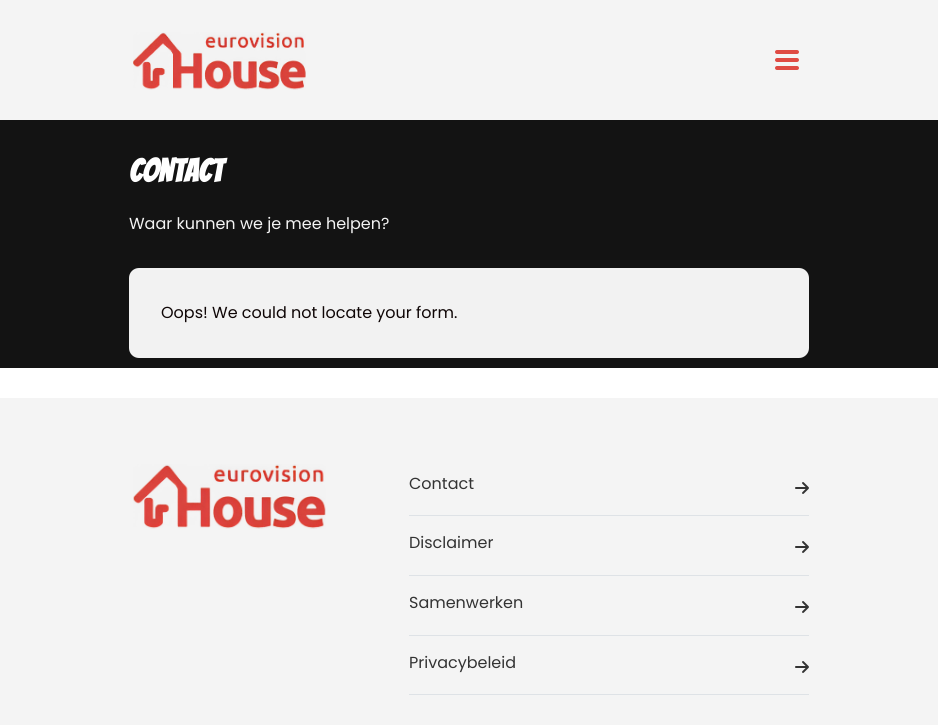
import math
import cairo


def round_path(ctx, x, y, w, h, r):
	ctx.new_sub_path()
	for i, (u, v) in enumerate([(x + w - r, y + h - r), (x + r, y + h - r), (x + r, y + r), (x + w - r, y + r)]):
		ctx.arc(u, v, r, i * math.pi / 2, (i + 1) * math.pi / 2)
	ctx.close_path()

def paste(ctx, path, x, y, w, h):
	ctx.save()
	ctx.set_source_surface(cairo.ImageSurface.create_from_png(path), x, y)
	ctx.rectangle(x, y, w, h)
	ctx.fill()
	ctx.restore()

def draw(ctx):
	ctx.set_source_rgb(1, 1, 1)
	ctx.paint()
	ctx.set_source_rgb(0.957, 0.957, 0.957)
	ctx.rectangle(0, 0, 938, 120)
	ctx.fill()
	paste(ctx, 'media/1.png', 133, 32, 173, 58)
	ctx.set_source_rgb(0.875, 0.29, 0.263)
	round_path(ctx, 775, 50, 24, 4, 2)
	ctx.fill()
	round_path(ctx, 775, 58, 24, 4, 2)
	ctx.fill()
	round_path(ctx, 775, 66, 24, 4, 2)
	ctx.fill()
	ctx.set_source_rgb(0.078, 0.078, 0.078)
	ctx.rectangle(0, 120, 938, 248)
	ctx.fill()
	ctx.select_font_face('Bangers', cairo.FONT_SLANT_NORMAL, cairo.FONT_WEIGHT_BOLD)
	ctx.set_font_size(32)
	ctx.set_source_rgb(1, 1, 1)
	ctx.move_to(129, 182)
	ctx.show_text('Contact')
	ctx.select_font_face('Poppins')
	ctx.set_font_size(16)
	ctx.set_source_rgb(0.957, 0.957, 0.957)
	ctx.move_to(129, 229)
	ctx.show_text('Waar kunnen we je mee helpen?')
	ctx.set_source_rgb(0.949, 0.949, 0.949)
	round_path(ctx, 129, 268, 680, 90, 10)
	ctx.fill()
	ctx.set_source_rgb(0.059, 0.027, 0.027)
	ctx.move_to(161, 318)
	ctx.show_text('Oops! We could not locate your form.')
	ctx.set_source_rgb(0.957, 0.957, 0.957)
	ctx.rectangle(0, 398, 938, 327)
	ctx.fill()
	paste(ctx, 'media/2.png', 133, 464, 193, 65)
	ctx.set_source_rgb(0.871, 0.886, 0.902)
	ctx.rectangle(409, 515, 400, 1)
	ctx.fill()
	ctx.set_source_rgb(0.2, 0.2, 0.2)
	ctx.move_to(409, 489)
	ctx.show_text('Contact')
	paste(ctx, 'media/3.png', 795, 482, 14, 12)
	ctx.set_source_rgb(0.871, 0.886, 0.902)
	ctx.rectangle(409, 575, 400, 1)
	ctx.fill()
	ctx.set_source_rgb(0.2, 0.2, 0.2)
	ctx.move_to(409, 548)
	ctx.show_text('Disclaimer')
	paste(ctx, 'media/3.png', 795, 541, 14, 12)
	ctx.set_source_rgb(0.871, 0.886, 0.902)
	ctx.rectangle(409, 635, 400, 1)
	ctx.fill()
	ctx.set_source_rgb(0.2, 0.2, 0.2)
	ctx.move_to(409, 608)
	ctx.show_text('Samenwerken')
	paste(ctx, 'media/3.png', 795, 601, 14, 12)
	ctx.set_source_rgb(0.871, 0.886, 0.902)
	ctx.rectangle(409, 694, 400, 1)
	ctx.fill()
	ctx.set_source_rgb(0.2, 0.2, 0.2)
	ctx.move_to(409, 668)
	ctx.show_text('Privacybeleid')
	paste(ctx, 'media/3.png', 795, 661, 14, 12)


surface = cairo.ImageSurface(cairo.FORMAT_RGB24, 938, 725)
ctx = cairo.Context(surface)
options = cairo.FontOptions()
options.set_hint_metrics(cairo.HINT_METRICS_OFF)
options.set_hint_style(cairo.HINT_STYLE_NONE)
ctx.set_font_options(options)
ctx.set_miter_limit(4)
draw(ctx)
surface.write_to_png('image.png')
